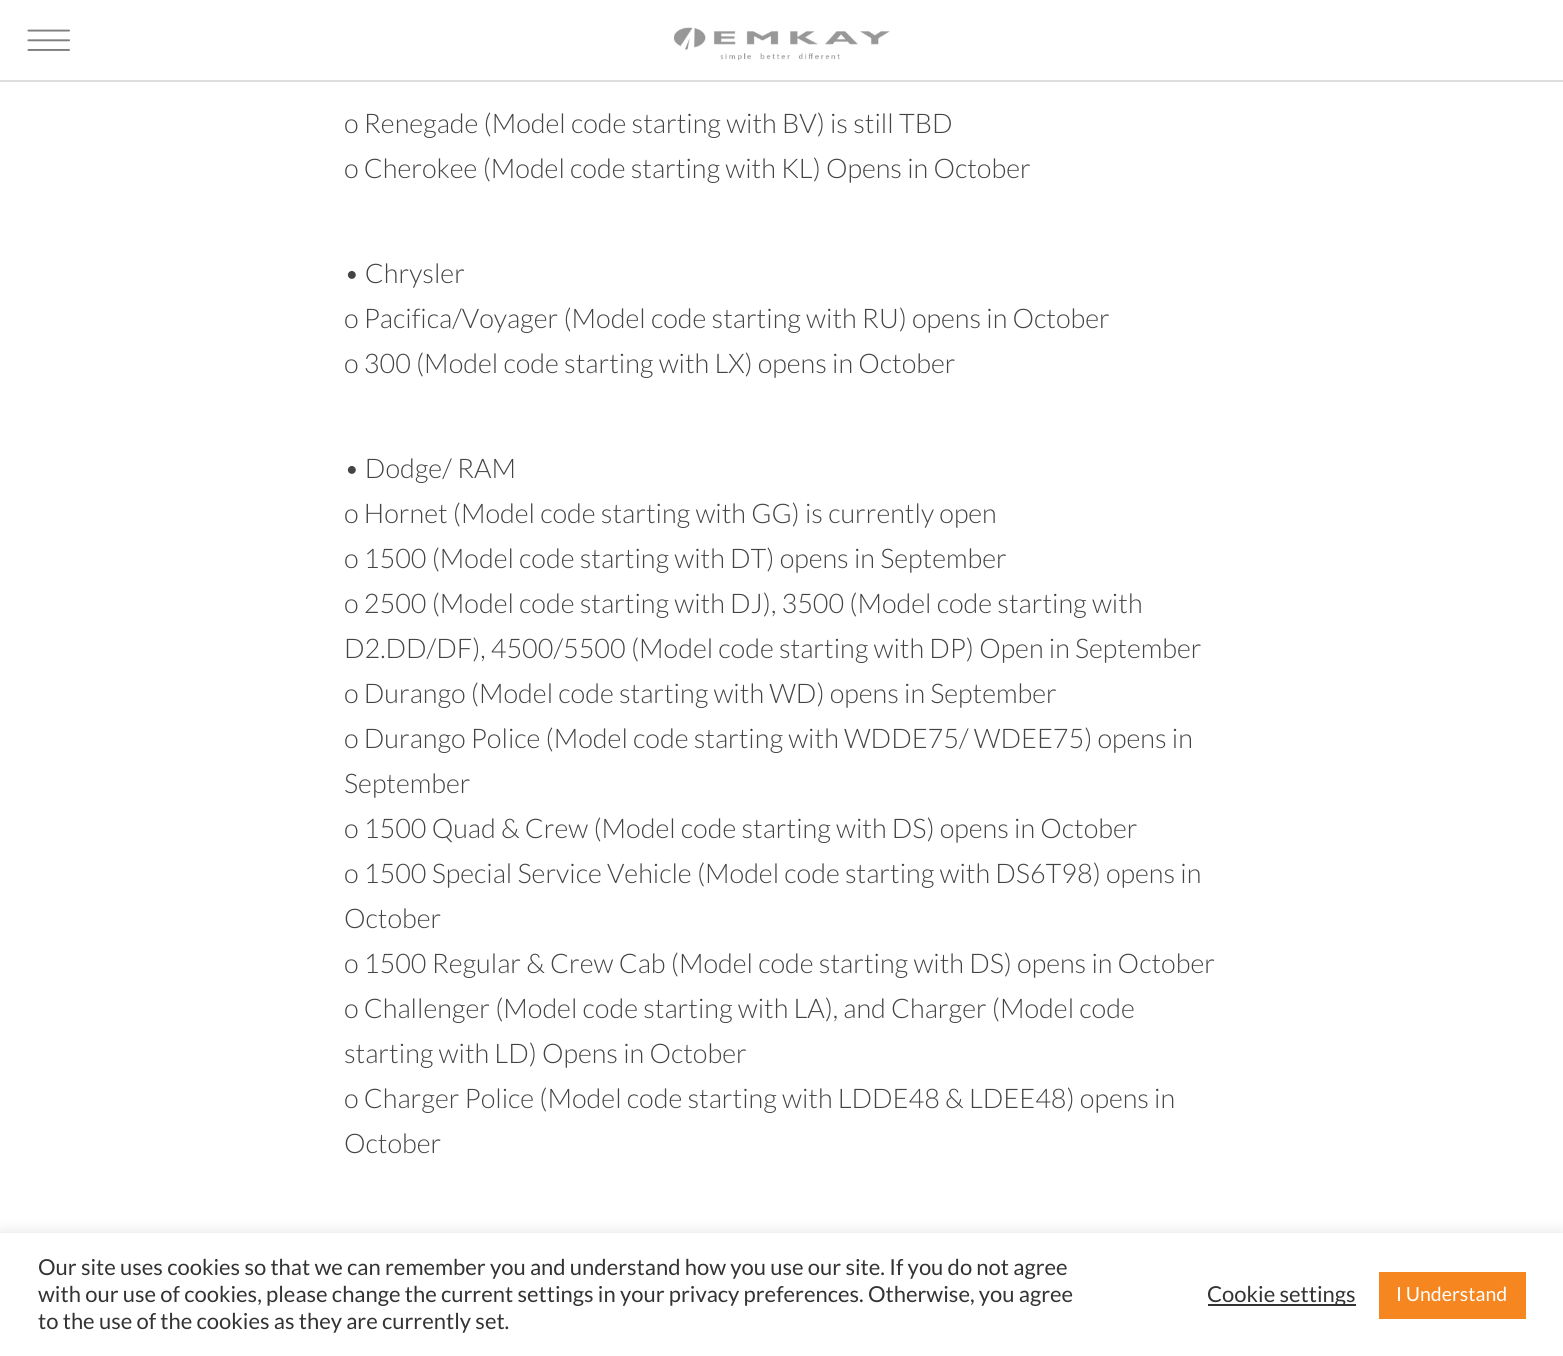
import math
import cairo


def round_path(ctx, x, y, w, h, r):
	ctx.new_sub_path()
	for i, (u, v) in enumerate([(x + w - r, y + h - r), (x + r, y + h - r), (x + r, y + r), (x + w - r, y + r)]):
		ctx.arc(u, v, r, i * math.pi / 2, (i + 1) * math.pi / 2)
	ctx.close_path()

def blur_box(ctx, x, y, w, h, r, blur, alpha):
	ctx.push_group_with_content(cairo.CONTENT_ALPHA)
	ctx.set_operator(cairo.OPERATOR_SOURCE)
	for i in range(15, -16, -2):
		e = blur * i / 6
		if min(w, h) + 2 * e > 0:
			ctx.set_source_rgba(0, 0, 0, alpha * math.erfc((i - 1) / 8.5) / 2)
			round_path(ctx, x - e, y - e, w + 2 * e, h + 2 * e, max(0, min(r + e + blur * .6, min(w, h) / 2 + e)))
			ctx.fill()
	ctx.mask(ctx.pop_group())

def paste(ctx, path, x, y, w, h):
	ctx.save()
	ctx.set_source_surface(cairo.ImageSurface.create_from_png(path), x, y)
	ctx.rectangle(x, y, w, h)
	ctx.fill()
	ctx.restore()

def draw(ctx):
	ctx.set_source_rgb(1, 1, 1)
	ctx.paint()
	ctx.set_source_rgb(0.867, 0.867, 0.867)
	ctx.rectangle(0, 80, 1563, 2)
	ctx.fill()
	paste(ctx, 'media/1.png', 27, 29, 43, 22)
	paste(ctx, 'media/2.png', 674, 27, 216, 34)
	ctx.select_font_face('Lato Light')
	ctx.set_font_size(27)
	ctx.set_source_rgb(0.267, 0.267, 0.267)
	for x, y, s in [
		(344, 133, 'o Renegade (Model code starting with BV) is still TBD'),
		(344, 178, 'o Cherokee (Model code starting with KL) Opens in October'),
		(344, 283, '• Chrysler'),
		(344, 328, 'o Pacifica/Voyager (Model code starting with RU) opens in October'),
		(344, 373, 'o 300 (Model code starting with LX) opens in October'),
		(344, 478, '• Dodge/ RAM'),
		(344, 523, 'o Hornet (Model code starting with GG) is currently open'),
		(344, 568, 'o 1500 (Model code starting with DT) opens in September'),
		(344, 613, 'o 2500 (Model code starting with DJ), 3500 (Model code starting with'),
		(344, 658, 'D2.DD/DF), 4500/5500 (Model code starting with DP) Open in September'),
		(344, 703, 'o Durango (Model code starting with WD) opens in September'),
		(344, 748, 'o Durango Police (Model code starting with WDDE75/ WDEE75) opens in'),
		(344, 793, 'September'),
		(344, 838, 'o 1500 Quad & Crew (Model code starting with DS) opens in October'),
		(344, 883, 'o 1500 Special Service Vehicle (Model code starting with DS6T98) opens in'),
		(344, 928, 'October'),
		(344, 973, 'o 1500 Regular & Crew Cab (Model code starting with DS) opens in October'),
		(344, 1018, 'o Challenger (Model code starting with LA), and Charger (Model code'),
		(344, 1063, 'starting with LD) Opens in October'),
		(344, 1108, 'o Charger Police (Model code starting with LDDE48 & LDEE48) opens in'),
		(344, 1153, 'October'),
	]:
		ctx.move_to(x, y)
		ctx.show_text(s)
	ctx.set_source_rgb(0.675, 0.671, 0.671)
	blur_box(ctx, 0, 1232, 1563, 123, 0, 7.5, 0.3)
	ctx.set_source_rgb(1, 1, 1)
	ctx.rectangle(0, 1233, 1563, 123)
	ctx.fill()
	ctx.select_font_face('Lato')
	ctx.set_font_size(22)
	ctx.set_source_rgb(0.2, 0.2, 0.2)
	for x, y, s in [
		(38, 1275, 'Our site uses cookies so that we can remember you and understand how you use our site. If you do not agree'),
		(38, 1302, 'with our use of cookies, please change the current settings in your privacy preferences. Otherwise, you agree'),
		(38, 1329, 'to the use of the cookies as they are currently set.'),
	]:
		ctx.move_to(x, y)
		ctx.show_text(s)
	ctx.rectangle(1208, 1304, 148, 2)
	ctx.fill()
	ctx.move_to(1207, 1302)
	ctx.show_text('Cookie settings')
	ctx.set_source_rgb(0.961, 0.525, 0.125)
	ctx.rectangle(1379, 1272, 147, 47)
	ctx.fill()
	ctx.set_font_size(19.5)
	ctx.set_source_rgb(1, 1, 1)
	ctx.move_to(1396, 1301)
	ctx.show_text('I Understand')


surface = cairo.ImageSurface(cairo.FORMAT_RGB24, 1563, 1356)
ctx = cairo.Context(surface)
options = cairo.FontOptions()
options.set_hint_metrics(cairo.HINT_METRICS_OFF)
options.set_hint_style(cairo.HINT_STYLE_NONE)
ctx.set_font_options(options)
ctx.set_miter_limit(4)
draw(ctx)
surface.write_to_png('image.png')
